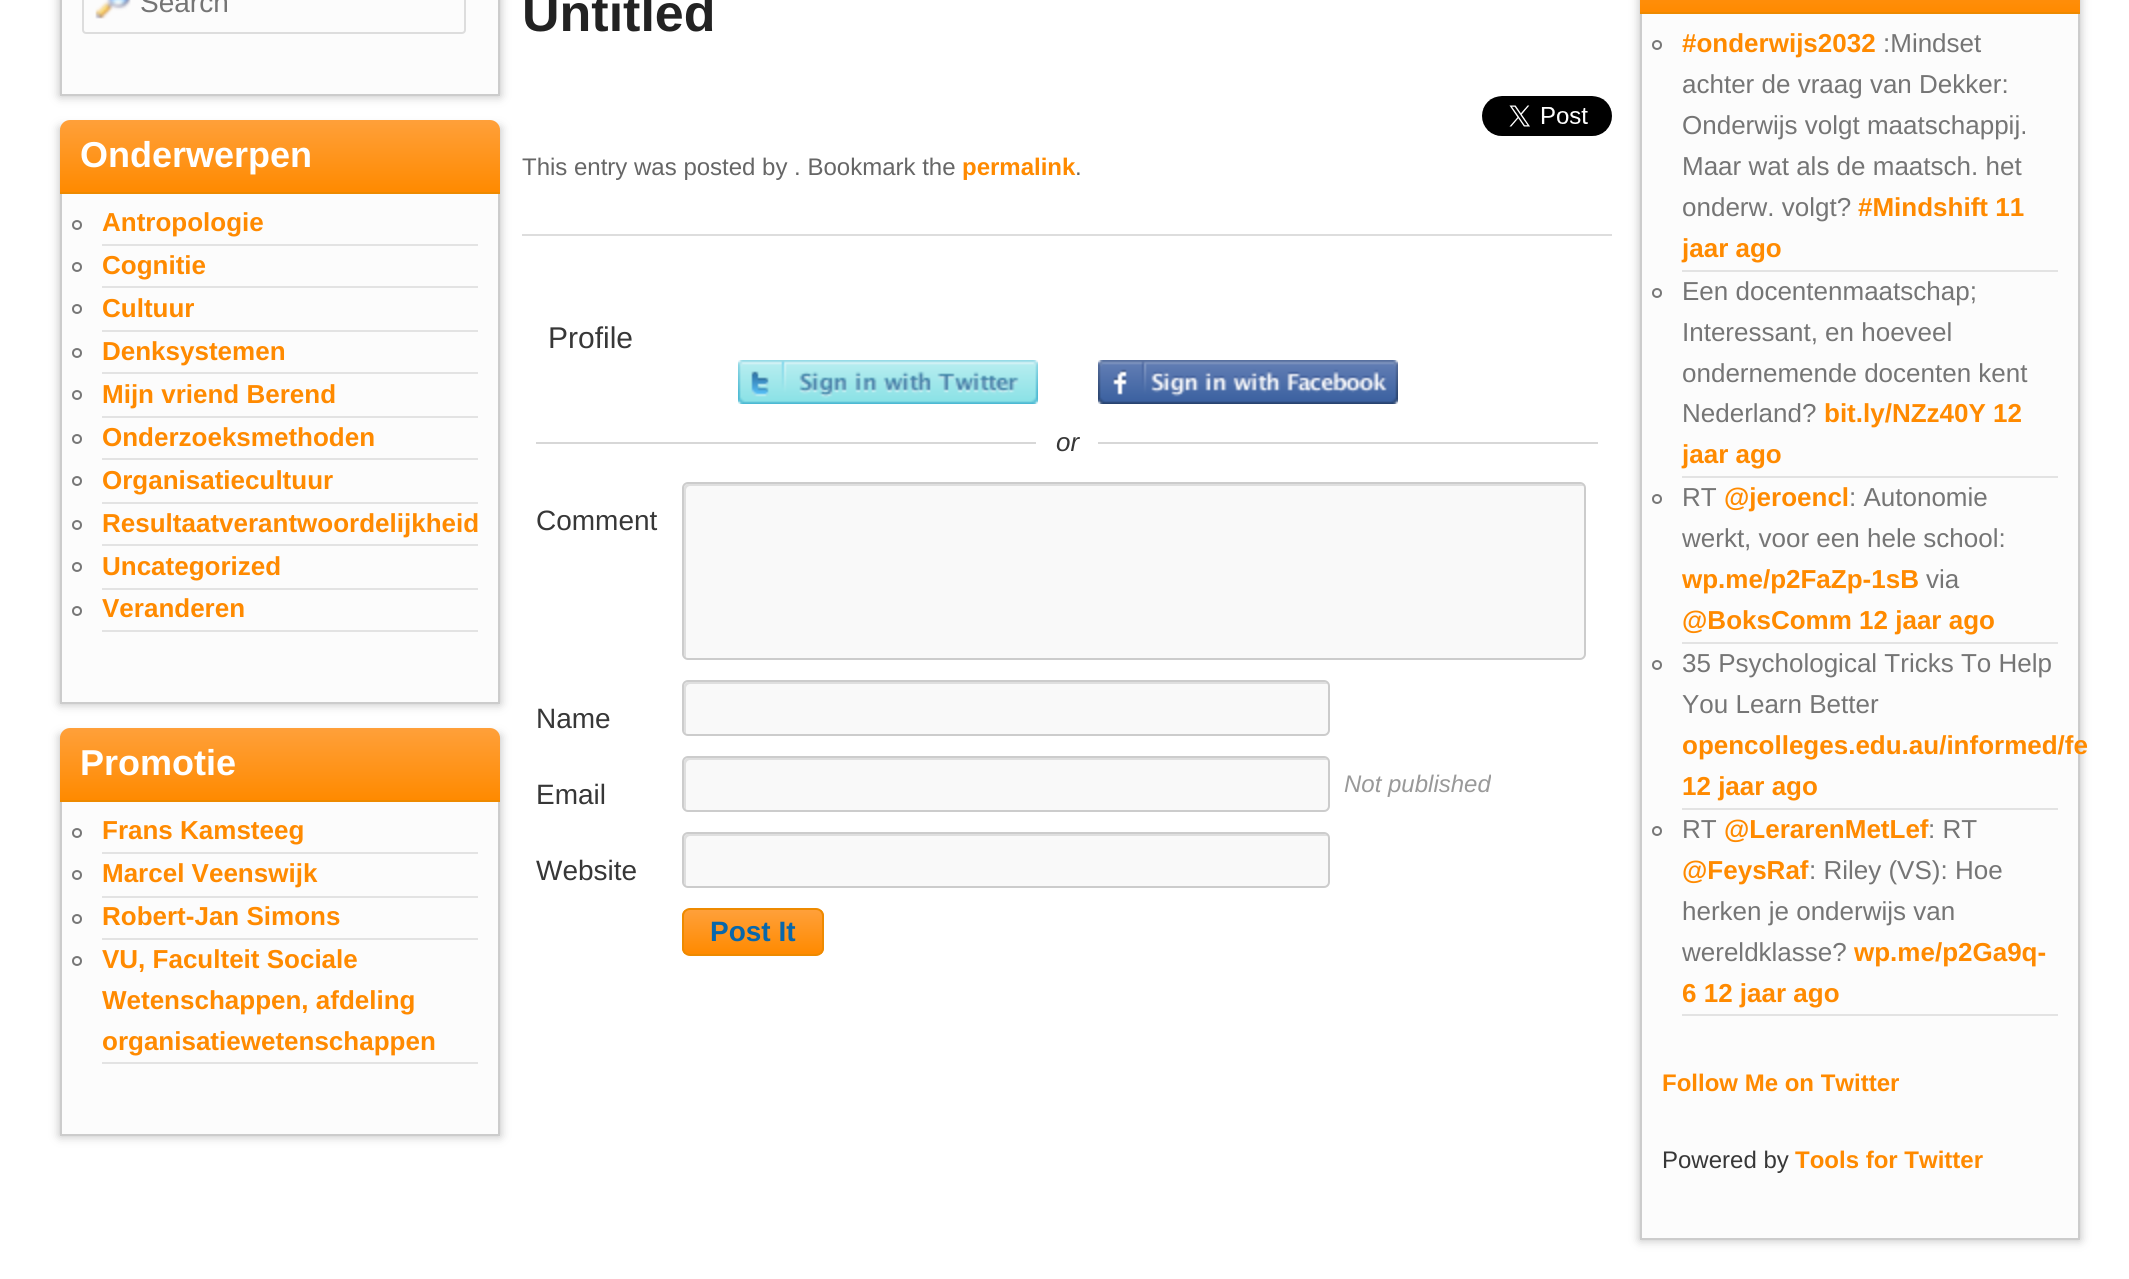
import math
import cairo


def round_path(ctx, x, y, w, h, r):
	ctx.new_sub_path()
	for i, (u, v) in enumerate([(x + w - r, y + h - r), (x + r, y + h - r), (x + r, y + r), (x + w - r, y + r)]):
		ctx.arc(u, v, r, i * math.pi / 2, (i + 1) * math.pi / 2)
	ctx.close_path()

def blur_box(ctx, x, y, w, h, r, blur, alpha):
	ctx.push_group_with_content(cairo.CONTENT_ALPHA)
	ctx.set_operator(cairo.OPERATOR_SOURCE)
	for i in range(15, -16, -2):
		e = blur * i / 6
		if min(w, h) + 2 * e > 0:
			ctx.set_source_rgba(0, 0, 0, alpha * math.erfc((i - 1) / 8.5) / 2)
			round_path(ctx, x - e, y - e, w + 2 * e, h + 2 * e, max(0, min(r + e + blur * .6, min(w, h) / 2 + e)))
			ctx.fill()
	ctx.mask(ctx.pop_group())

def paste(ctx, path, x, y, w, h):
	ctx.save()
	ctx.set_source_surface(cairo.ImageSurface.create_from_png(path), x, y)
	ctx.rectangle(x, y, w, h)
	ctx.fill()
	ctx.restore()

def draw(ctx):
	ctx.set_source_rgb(1, 1, 1)
	ctx.paint()
	ctx.set_source_rgb(0.733, 0.733, 0.733)
	blur_box(ctx, 60, -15, 440, 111, 0, 5, 1)
	ctx.set_source_rgb(0.988, 0.988, 0.988)
	ctx.rectangle(61, -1, 438, 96)
	ctx.fill_preserve()
	ctx.set_source_rgb(0.8, 0.8, 0.8)
	ctx.stroke()
	paste(ctx, 'media/1.png', 95, 0, 36, 19)
	round_path(ctx, 83, -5, 382, 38, 3)
	ctx.set_source_rgb(0.867, 0.867, 0.867)
	ctx.stroke()
	ctx.select_font_face('Liberation Sans')
	ctx.set_font_size(28)
	ctx.set_source_rgb(0.459, 0.459, 0.459)
	ctx.move_to(140, 12)
	ctx.show_text('Search')
	ctx.set_source_rgb(0.733, 0.733, 0.733)
	blur_box(ctx, 60, 128, 440, 576, 0, 5, 1)
	ctx.set_source_rgb(0.988, 0.988, 0.988)
	ctx.rectangle(62, 194, 436, 508)
	ctx.fill()
	ctx.rectangle(61, 129, 438, 574)
	ctx.set_source_rgb(0.8, 0.8, 0.8)
	ctx.stroke()
	gradient = cairo.LinearGradient(280, 120, 280, 192)
	gradient.add_color_stop_rgba(0, 1, 0.627, 0.227, 1)
	gradient.add_color_stop_rgba(1, 1, 0.541, 0, 1)
	ctx.set_source(gradient)
	ctx.new_path()
	ctx.move_to(70, 120)
	ctx.line_to(490, 120)
	ctx.curve_to(495.5, 120, 500, 124.5, 500, 130)
	ctx.line_to(500, 192)
	ctx.line_to(60, 192)
	ctx.line_to(60, 130)
	ctx.curve_to(60, 124.5, 64.5, 120, 70, 120)
	ctx.close_path()
	ctx.fill()
	ctx.set_source_rgb(0.933, 0.541, 0)
	ctx.rectangle(60, 192, 440, 2)
	ctx.fill()
	ctx.select_font_face('Liberation Sans', cairo.FONT_SLANT_NORMAL, cairo.FONT_WEIGHT_BOLD)
	ctx.set_font_size(36)
	ctx.set_source_rgb(1, 1, 1)
	ctx.move_to(80, 167)
	ctx.show_text('Onderwerpen')
	ctx.set_source_rgb(0.89, 0.89, 0.89)
	ctx.rectangle(102, 244, 376, 2)
	ctx.fill()
	ctx.arc(77, 225, 4, 0, 2 * math.pi)
	ctx.set_source_rgb(0.467, 0.467, 0.467)
	ctx.stroke()
	ctx.set_font_size(26)
	ctx.set_source_rgb(1, 0.541, 0)
	ctx.move_to(102, 231)
	ctx.show_text('Antropologie')
	ctx.set_source_rgb(0.89, 0.89, 0.89)
	ctx.rectangle(102, 286, 376, 2)
	ctx.fill()
	ctx.arc(77, 267, 4, 0, 2 * math.pi)
	ctx.set_source_rgb(0.467, 0.467, 0.467)
	ctx.stroke()
	ctx.set_source_rgb(1, 0.541, 0)
	ctx.move_to(102, 274)
	ctx.show_text('Cognitie')
	ctx.set_source_rgb(0.89, 0.89, 0.89)
	ctx.rectangle(102, 330, 376, 2)
	ctx.fill()
	ctx.arc(77, 309, 4, 0, 2 * math.pi)
	ctx.set_source_rgb(0.467, 0.467, 0.467)
	ctx.stroke()
	ctx.set_source_rgb(1, 0.541, 0)
	ctx.move_to(102, 317)
	ctx.show_text('Cultuur')
	ctx.set_source_rgb(0.89, 0.89, 0.89)
	ctx.rectangle(102, 372, 376, 2)
	ctx.fill()
	ctx.arc(77, 353, 4, 0, 2 * math.pi)
	ctx.set_source_rgb(0.467, 0.467, 0.467)
	ctx.stroke()
	ctx.set_source_rgb(1, 0.541, 0)
	ctx.move_to(102, 360)
	ctx.show_text('Denksystemen')
	ctx.set_source_rgb(0.89, 0.89, 0.89)
	ctx.rectangle(102, 416, 376, 2)
	ctx.fill()
	ctx.arc(77, 395, 4, 0, 2 * math.pi)
	ctx.set_source_rgb(0.467, 0.467, 0.467)
	ctx.stroke()
	ctx.set_source_rgb(1, 0.541, 0)
	ctx.move_to(102, 403)
	ctx.show_text('Mijn vriend Berend')
	ctx.set_source_rgb(0.89, 0.89, 0.89)
	ctx.rectangle(102, 458, 376, 2)
	ctx.fill()
	ctx.arc(77, 439, 4, 0, 2 * math.pi)
	ctx.set_source_rgb(0.467, 0.467, 0.467)
	ctx.stroke()
	ctx.set_source_rgb(1, 0.541, 0)
	ctx.move_to(102, 446)
	ctx.show_text('Onderzoeksmethoden')
	ctx.set_source_rgb(0.89, 0.89, 0.89)
	ctx.rectangle(102, 502, 376, 2)
	ctx.fill()
	ctx.arc(77, 481, 4, 0, 2 * math.pi)
	ctx.set_source_rgb(0.467, 0.467, 0.467)
	ctx.stroke()
	ctx.set_source_rgb(1, 0.541, 0)
	ctx.move_to(102, 489)
	ctx.show_text('Organisatiecultuur')
	ctx.set_source_rgb(0.89, 0.89, 0.89)
	ctx.rectangle(102, 544, 376, 2)
	ctx.fill()
	ctx.arc(77, 525, 4, 0, 2 * math.pi)
	ctx.set_source_rgb(0.467, 0.467, 0.467)
	ctx.stroke()
	ctx.set_source_rgb(1, 0.541, 0)
	ctx.move_to(102, 532)
	ctx.show_text('Resultaatverantwoordelijkheid')
	ctx.set_source_rgb(0.89, 0.89, 0.89)
	ctx.rectangle(102, 588, 376, 2)
	ctx.fill()
	ctx.arc(77, 567, 4, 0, 2 * math.pi)
	ctx.set_source_rgb(0.467, 0.467, 0.467)
	ctx.stroke()
	ctx.set_source_rgb(1, 0.541, 0)
	ctx.move_to(102, 575)
	ctx.show_text('Uncategorized')
	ctx.set_source_rgb(0.89, 0.89, 0.89)
	ctx.rectangle(102, 630, 376, 2)
	ctx.fill()
	ctx.arc(77, 611, 4, 0, 2 * math.pi)
	ctx.set_source_rgb(0.467, 0.467, 0.467)
	ctx.stroke()
	ctx.set_source_rgb(1, 0.541, 0)
	ctx.move_to(102, 617)
	ctx.show_text('Veranderen')
	ctx.set_source_rgb(0.733, 0.733, 0.733)
	blur_box(ctx, 60, 736, 440, 400, 0, 5, 1)
	ctx.set_source_rgb(0.988, 0.988, 0.988)
	ctx.rectangle(62, 802, 436, 332)
	ctx.fill()
	ctx.rectangle(61, 737, 438, 398)
	ctx.set_source_rgb(0.8, 0.8, 0.8)
	ctx.stroke()
	gradient = cairo.LinearGradient(280, 728, 280, 800)
	gradient.add_color_stop_rgba(0, 1, 0.627, 0.227, 1)
	gradient.add_color_stop_rgba(1, 1, 0.541, 0, 1)
	ctx.set_source(gradient)
	ctx.new_path()
	ctx.move_to(70, 728)
	ctx.line_to(490, 728)
	ctx.curve_to(495.5, 728, 500, 732.5, 500, 738)
	ctx.line_to(500, 800)
	ctx.line_to(60, 800)
	ctx.line_to(60, 738)
	ctx.curve_to(60, 732.5, 64.5, 728, 70, 728)
	ctx.close_path()
	ctx.fill()
	ctx.set_source_rgb(0.933, 0.541, 0)
	ctx.rectangle(60, 800, 440, 2)
	ctx.fill()
	ctx.set_font_size(36)
	ctx.set_source_rgb(1, 1, 1)
	ctx.move_to(80, 775)
	ctx.show_text('Promotie')
	ctx.set_source_rgb(0.89, 0.89, 0.89)
	ctx.rectangle(102, 852, 376, 2)
	ctx.fill()
	ctx.arc(77, 833, 4, 0, 2 * math.pi)
	ctx.set_source_rgb(0.467, 0.467, 0.467)
	ctx.stroke()
	ctx.set_font_size(26)
	ctx.set_source_rgb(1, 0.541, 0)
	ctx.move_to(102, 839)
	ctx.show_text('Frans Kamsteeg')
	ctx.set_source_rgb(0.89, 0.89, 0.89)
	ctx.rectangle(102, 896, 376, 2)
	ctx.fill()
	ctx.arc(77, 875, 4, 0, 2 * math.pi)
	ctx.set_source_rgb(0.467, 0.467, 0.467)
	ctx.stroke()
	ctx.set_source_rgb(1, 0.541, 0)
	ctx.move_to(102, 882)
	ctx.show_text('Marcel Veenswijk')
	ctx.set_source_rgb(0.89, 0.89, 0.89)
	ctx.rectangle(102, 938, 376, 2)
	ctx.fill()
	ctx.arc(77, 919, 4, 0, 2 * math.pi)
	ctx.set_source_rgb(0.467, 0.467, 0.467)
	ctx.stroke()
	ctx.set_source_rgb(1, 0.541, 0)
	ctx.move_to(102, 925)
	ctx.show_text('Robert-Jan Simons')
	ctx.set_source_rgb(0.89, 0.89, 0.89)
	ctx.rectangle(102, 1062, 376, 2)
	ctx.fill()
	ctx.arc(77, 961, 4, 0, 2 * math.pi)
	ctx.set_source_rgb(0.467, 0.467, 0.467)
	ctx.stroke()
	ctx.set_source_rgb(1, 0.541, 0)
	for x, y, s in [
		(102, 968, 'VU, Faculteit Sociale'),
		(102, 1009, 'Wetenschappen, afdeling'),
		(102, 1050, 'organisatiewetenschappen'),
	]:
		ctx.move_to(x, y)
		ctx.show_text(s)
	ctx.set_source_rgb(0.867, 0.867, 0.867)
	ctx.rectangle(522, 234, 1090, 2)
	ctx.fill()
	ctx.set_font_size(52)
	ctx.set_source_rgb(0.133, 0.133, 0.133)
	ctx.move_to(522, 31)
	ctx.show_text('Untitled')
	paste(ctx, 'media/2.png', 1482, 96, 130, 40)
	ctx.select_font_face('Liberation Sans')
	ctx.set_font_size(24)
	ctx.set_source_rgb(0.4, 0.4, 0.4)
	ctx.move_to(522, 175)
	ctx.show_text('This entry was posted by . Bookmark the')
	ctx.select_font_face('Liberation Sans', cairo.FONT_SLANT_NORMAL, cairo.FONT_WEIGHT_BOLD)
	ctx.set_source_rgb(1, 0.541, 0)
	ctx.move_to(962, 175)
	ctx.show_text('permalink')
	ctx.select_font_face('Liberation Sans')
	ctx.set_source_rgb(0.4, 0.4, 0.4)
	ctx.move_to(1075, 175)
	ctx.show_text('.')
	ctx.set_font_size(30)
	ctx.set_source_rgb(0.216, 0.216, 0.216)
	ctx.move_to(548, 348)
	ctx.show_text('Profile')
	paste(ctx, 'media/3.png', 738, 360, 300, 44)
	paste(ctx, 'media/4.png', 1098, 360, 300, 44)
	ctx.set_source_rgb(0.843, 0.843, 0.843)
	ctx.rectangle(536, 442, 1062, 2)
	ctx.fill()
	ctx.set_source_rgb(1, 1, 1)
	ctx.rectangle(1036, 442, 62, 2)
	ctx.fill()
	ctx.select_font_face('Liberation Sans', cairo.FONT_SLANT_ITALIC)
	ctx.set_font_size(26)
	ctx.set_source_rgb(0.216, 0.216, 0.216)
	ctx.move_to(1056, 451)
	ctx.show_text('or')
	ctx.select_font_face('Liberation Sans')
	ctx.set_font_size(28)
	ctx.move_to(536, 530)
	ctx.show_text('Comment')
	ctx.set_source_rgb(0.973, 0.973, 0.973)
	round_path(ctx, 684, 484, 900, 174, 4)
	ctx.fill()
	ctx.set_source_rgb(0.875, 0.875, 0.875)
	ctx.new_path()
	ctx.move_to(690, 486)
	ctx.line_to(1582, 486)
	ctx.line_to(1584, 486)
	ctx.curve_to(1583, 485, 1582, 484, 1580, 484)
	ctx.line_to(688, 484)
	ctx.curve_to(686, 484, 684, 486, 684, 488)
	ctx.line_to(684, 654)
	ctx.curve_to(684, 656, 685, 657, 686, 658)
	ctx.line_to(686, 656)
	ctx.line_to(686, 490)
	ctx.curve_to(686, 488, 688, 486, 690, 486)
	ctx.close_path()
	ctx.fill()
	round_path(ctx, 683, 483, 902, 176, 5)
	ctx.set_source_rgb(0.8, 0.8, 0.8)
	ctx.stroke()
	ctx.set_source_rgb(0.216, 0.216, 0.216)
	ctx.move_to(536, 728)
	ctx.show_text('Name')
	ctx.set_source_rgb(0.973, 0.973, 0.973)
	round_path(ctx, 684, 682, 644, 52, 4)
	ctx.fill()
	ctx.set_source_rgb(0.875, 0.875, 0.875)
	ctx.new_path()
	ctx.move_to(690, 684)
	ctx.line_to(1326, 684)
	ctx.line_to(1328, 684)
	ctx.curve_to(1327, 683, 1326, 682, 1324, 682)
	ctx.line_to(688, 682)
	ctx.curve_to(686, 682, 684, 684, 684, 686)
	ctx.line_to(684, 730)
	ctx.curve_to(684, 732, 685, 733, 686, 734)
	ctx.line_to(686, 732)
	ctx.line_to(686, 688)
	ctx.curve_to(686, 686, 688, 684, 690, 684)
	ctx.close_path()
	ctx.fill()
	round_path(ctx, 683, 681, 646, 54, 5)
	ctx.set_source_rgb(0.8, 0.8, 0.8)
	ctx.stroke()
	ctx.set_source_rgb(0.216, 0.216, 0.216)
	ctx.move_to(536, 804)
	ctx.show_text('Email')
	ctx.set_source_rgb(0.973, 0.973, 0.973)
	round_path(ctx, 684, 758, 644, 52, 4)
	ctx.fill()
	ctx.set_source_rgb(0.875, 0.875, 0.875)
	ctx.new_path()
	ctx.move_to(690, 760)
	ctx.line_to(1326, 760)
	ctx.line_to(1328, 760)
	ctx.curve_to(1327, 759, 1326, 758, 1324, 758)
	ctx.line_to(688, 758)
	ctx.curve_to(686, 758, 684, 760, 684, 762)
	ctx.line_to(684, 806)
	ctx.curve_to(684, 808, 685, 809, 686, 810)
	ctx.line_to(686, 808)
	ctx.line_to(686, 764)
	ctx.curve_to(686, 762, 688, 760, 690, 760)
	ctx.close_path()
	ctx.fill()
	round_path(ctx, 683, 757, 646, 54, 5)
	ctx.set_source_rgb(0.8, 0.8, 0.8)
	ctx.stroke()
	ctx.select_font_face('Liberation Sans', cairo.FONT_SLANT_ITALIC)
	ctx.set_font_size(24)
	ctx.set_source_rgb(0.6, 0.6, 0.6)
	ctx.move_to(1344, 792)
	ctx.show_text('Not published')
	ctx.select_font_face('Liberation Sans')
	ctx.set_font_size(28)
	ctx.set_source_rgb(0.216, 0.216, 0.216)
	ctx.move_to(536, 880)
	ctx.show_text('Website')
	ctx.set_source_rgb(0.973, 0.973, 0.973)
	round_path(ctx, 684, 834, 644, 52, 4)
	ctx.fill()
	ctx.set_source_rgb(0.875, 0.875, 0.875)
	ctx.new_path()
	ctx.move_to(690, 836)
	ctx.line_to(1326, 836)
	ctx.line_to(1328, 836)
	ctx.curve_to(1327, 835, 1326, 834, 1324, 834)
	ctx.line_to(688, 834)
	ctx.curve_to(686, 834, 684, 836, 684, 838)
	ctx.line_to(684, 882)
	ctx.curve_to(684, 884, 685, 885, 686, 886)
	ctx.line_to(686, 884)
	ctx.line_to(686, 840)
	ctx.curve_to(686, 838, 688, 836, 690, 836)
	ctx.close_path()
	ctx.fill()
	round_path(ctx, 683, 833, 646, 54, 5)
	ctx.set_source_rgb(0.8, 0.8, 0.8)
	ctx.stroke()
	ctx.save()
	round_path(ctx, 682, 908, 142, 48, 8)
	ctx.clip()
	gradient = cairo.LinearGradient(753, 910, 753, 954)
	gradient.add_color_stop_rgba(0, 1, 0.627, 0.227, 1)
	gradient.add_color_stop_rgba(1, 1, 0.541, 0, 1)
	ctx.set_source(gradient)
	ctx.rectangle(682, 910, 142, 44)
	ctx.fill()
	ctx.restore()
	round_path(ctx, 683, 909, 140, 46, 7)
	ctx.set_source_rgb(0.933, 0.541, 0)
	ctx.stroke()
	ctx.select_font_face('Liberation Sans', cairo.FONT_SLANT_NORMAL, cairo.FONT_WEIGHT_BOLD)
	ctx.set_source_rgb(0.031, 0.404, 0.671)
	ctx.move_to(710, 941)
	ctx.show_text('Post It')
	ctx.set_source_rgb(0.733, 0.733, 0.733)
	blur_box(ctx, 1640, -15, 440, 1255, 0, 5, 1)
	ctx.set_source_rgb(0.988, 0.988, 0.988)
	ctx.rectangle(1642, 14, 436, 1224)
	ctx.fill()
	ctx.rectangle(1641, -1, 438, 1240)
	ctx.set_source_rgb(0.8, 0.8, 0.8)
	ctx.stroke()
	gradient = cairo.LinearGradient(1860, -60, 1860, 12)
	gradient.add_color_stop_rgba(0, 1, 0.627, 0.227, 1)
	gradient.add_color_stop_rgba(1, 1, 0.541, 0, 1)
	ctx.set_source(gradient)
	ctx.rectangle(1640, 0, 440, 12)
	ctx.fill()
	ctx.set_source_rgb(0.933, 0.541, 0)
	ctx.rectangle(1640, 12, 440, 2)
	ctx.fill()
	ctx.set_source_rgb(0.89, 0.89, 0.89)
	ctx.rectangle(1682, 270, 376, 2)
	ctx.fill()
	ctx.arc(1657, 45, 4, 0, 2 * math.pi)
	ctx.set_source_rgb(0.467, 0.467, 0.467)
	ctx.stroke()
	ctx.set_font_size(26)
	ctx.set_source_rgb(1, 0.541, 0)
	ctx.move_to(1682, 52)
	ctx.show_text('#onderwijs2032')
	ctx.select_font_face('Liberation Sans')
	ctx.set_source_rgb(0.459, 0.459, 0.459)
	for x, y, s in [
		(1883, 52, ':Mindset'),
		(1682, 93, 'achter de vraag van Dekker:'),
		(1682, 134, 'Onderwijs volgt maatschappij.'),
		(1682, 175, 'Maar wat als de maatsch. het'),
		(1682, 216, 'onderw. volgt?'),
	]:
		ctx.move_to(x, y)
		ctx.show_text(s)
	ctx.select_font_face('Liberation Sans', cairo.FONT_SLANT_NORMAL, cairo.FONT_WEIGHT_BOLD)
	ctx.set_source_rgb(1, 0.541, 0)
	ctx.move_to(1858, 216)
	ctx.show_text('#Mindshift 11')
	ctx.move_to(1682, 257)
	ctx.show_text('jaar ago')
	ctx.set_source_rgb(0.89, 0.89, 0.89)
	ctx.rectangle(1682, 476, 376, 2)
	ctx.fill()
	ctx.arc(1657, 293, 4, 0, 2 * math.pi)
	ctx.set_source_rgb(0.467, 0.467, 0.467)
	ctx.stroke()
	ctx.select_font_face('Liberation Sans')
	ctx.set_source_rgb(0.459, 0.459, 0.459)
	for x, y, s in [
		(1682, 300, 'Een docentenmaatschap;'),
		(1682, 341, 'Interessant, en hoeveel'),
		(1682, 382, 'ondernemende docenten kent'),
		(1682, 422, 'Nederland?'),
	]:
		ctx.move_to(x, y)
		ctx.show_text(s)
	ctx.select_font_face('Liberation Sans', cairo.FONT_SLANT_NORMAL, cairo.FONT_WEIGHT_BOLD)
	ctx.set_source_rgb(1, 0.541, 0)
	ctx.move_to(1824, 422)
	ctx.show_text('bit.ly/NZz40Y 12')
	ctx.move_to(1682, 463)
	ctx.show_text('jaar ago')
	ctx.set_source_rgb(0.89, 0.89, 0.89)
	ctx.rectangle(1682, 642, 376, 2)
	ctx.fill()
	ctx.arc(1657, 499, 4, 0, 2 * math.pi)
	ctx.set_source_rgb(0.467, 0.467, 0.467)
	ctx.stroke()
	ctx.select_font_face('Liberation Sans')
	ctx.set_source_rgb(0.459, 0.459, 0.459)
	ctx.move_to(1682, 506)
	ctx.show_text('RT')
	ctx.select_font_face('Liberation Sans', cairo.FONT_SLANT_NORMAL, cairo.FONT_WEIGHT_BOLD)
	ctx.set_source_rgb(1, 0.541, 0)
	ctx.move_to(1724, 506)
	ctx.show_text('@jeroencl')
	ctx.select_font_face('Liberation Sans')
	ctx.set_source_rgb(0.459, 0.459, 0.459)
	ctx.move_to(1849, 506)
	ctx.show_text(': Autonomie')
	ctx.move_to(1682, 547)
	ctx.show_text('werkt, voor een hele school:')
	ctx.select_font_face('Liberation Sans', cairo.FONT_SLANT_NORMAL, cairo.FONT_WEIGHT_BOLD)
	ctx.set_source_rgb(1, 0.541, 0)
	ctx.move_to(1682, 588)
	ctx.show_text('wp.me/p2FaZp-1sB')
	ctx.select_font_face('Liberation Sans')
	ctx.set_source_rgb(0.459, 0.459, 0.459)
	ctx.move_to(1926, 588)
	ctx.show_text('via')
	ctx.select_font_face('Liberation Sans', cairo.FONT_SLANT_NORMAL, cairo.FONT_WEIGHT_BOLD)
	ctx.set_source_rgb(1, 0.541, 0)
	ctx.move_to(1682, 629)
	ctx.show_text('@BoksComm 12 jaar ago')
	ctx.set_source_rgb(0.89, 0.89, 0.89)
	ctx.rectangle(1682, 808, 376, 2)
	ctx.fill()
	ctx.arc(1657, 665, 4, 0, 2 * math.pi)
	ctx.set_source_rgb(0.467, 0.467, 0.467)
	ctx.stroke()
	ctx.select_font_face('Liberation Sans')
	ctx.set_source_rgb(0.459, 0.459, 0.459)
	ctx.move_to(1682, 672)
	ctx.show_text('35 Psychological Tricks To Help')
	ctx.move_to(1682, 713)
	ctx.show_text('You Learn Better')
	ctx.select_font_face('Liberation Sans', cairo.FONT_SLANT_NORMAL, cairo.FONT_WEIGHT_BOLD)
	ctx.set_source_rgb(1, 0.541, 0)
	ctx.move_to(1682, 754)
	ctx.show_text('opencolleges.edu.au/informed/fe')
	ctx.move_to(1682, 795)
	ctx.show_text('12 jaar ago')
	ctx.set_source_rgb(0.89, 0.89, 0.89)
	ctx.rectangle(1682, 1014, 376, 2)
	ctx.fill()
	ctx.arc(1657, 831, 4, 0, 2 * math.pi)
	ctx.set_source_rgb(0.467, 0.467, 0.467)
	ctx.stroke()
	ctx.select_font_face('Liberation Sans')
	ctx.set_source_rgb(0.459, 0.459, 0.459)
	ctx.move_to(1682, 838)
	ctx.show_text('RT')
	ctx.select_font_face('Liberation Sans', cairo.FONT_SLANT_NORMAL, cairo.FONT_WEIGHT_BOLD)
	ctx.set_source_rgb(1, 0.541, 0)
	ctx.move_to(1724, 838)
	ctx.show_text('@LerarenMetLef')
	ctx.select_font_face('Liberation Sans')
	ctx.set_source_rgb(0.459, 0.459, 0.459)
	ctx.move_to(1928, 838)
	ctx.show_text(': RT')
	ctx.select_font_face('Liberation Sans', cairo.FONT_SLANT_NORMAL, cairo.FONT_WEIGHT_BOLD)
	ctx.set_source_rgb(1, 0.541, 0)
	ctx.move_to(1682, 879)
	ctx.show_text('@FeysRaf')
	ctx.select_font_face('Liberation Sans')
	ctx.set_source_rgb(0.459, 0.459, 0.459)
	for x, y, s in [
		(1809, 879, ': Riley (VS): Hoe'),
		(1682, 920, 'herken je onderwijs van'),
		(1682, 961, 'wereldklasse?'),
	]:
		ctx.move_to(x, y)
		ctx.show_text(s)
	ctx.select_font_face('Liberation Sans', cairo.FONT_SLANT_NORMAL, cairo.FONT_WEIGHT_BOLD)
	ctx.set_source_rgb(1, 0.541, 0)
	ctx.move_to(1854, 961)
	ctx.show_text('wp.me/p2Ga9q-')
	ctx.move_to(1682, 1002)
	ctx.show_text('6 12 jaar ago')
	ctx.set_font_size(24)
	ctx.move_to(1662, 1091)
	ctx.show_text('Follow Me on Twitter')
	ctx.select_font_face('Liberation Sans')
	ctx.set_source_rgb(0.216, 0.216, 0.216)
	ctx.move_to(1662, 1168)
	ctx.show_text('Powered by')
	ctx.select_font_face('Liberation Sans', cairo.FONT_SLANT_NORMAL, cairo.FONT_WEIGHT_BOLD)
	ctx.set_source_rgb(1, 0.541, 0)
	ctx.move_to(1795, 1168)
	ctx.show_text('Tools for Twitter')


surface = cairo.ImageSurface(cairo.FORMAT_RGB24, 2129, 1279)
ctx = cairo.Context(surface)
options = cairo.FontOptions()
options.set_hint_metrics(cairo.HINT_METRICS_OFF)
options.set_hint_style(cairo.HINT_STYLE_NONE)
ctx.set_font_options(options)
ctx.set_miter_limit(4)
draw(ctx)
surface.write_to_png('image.png')
